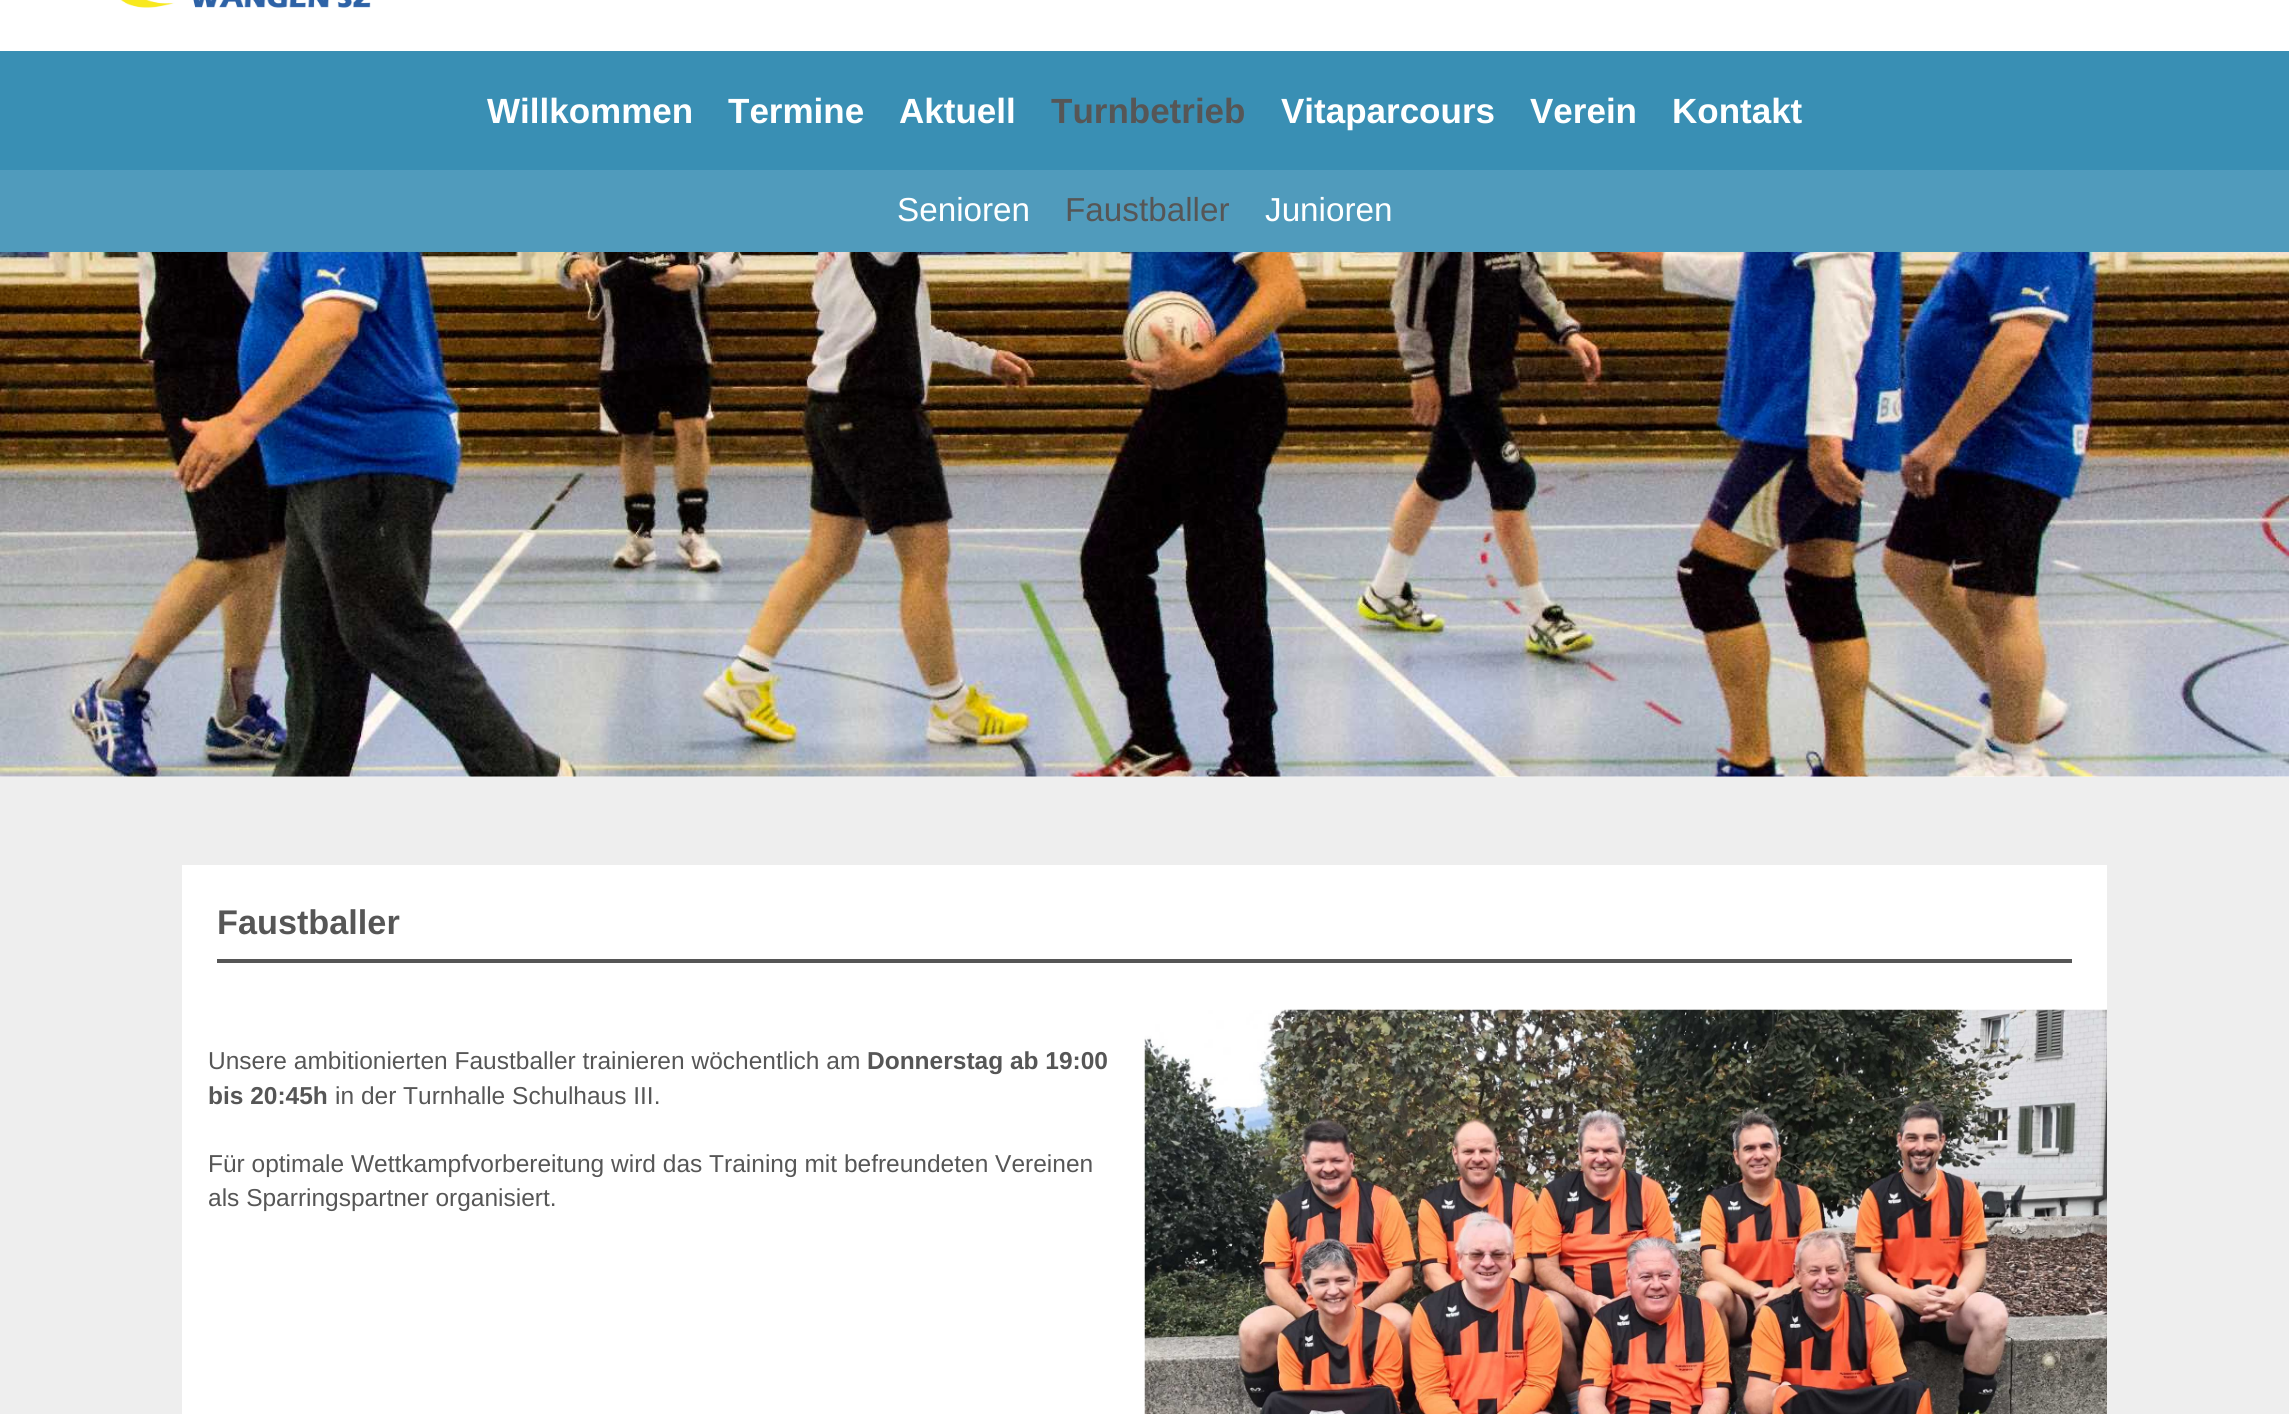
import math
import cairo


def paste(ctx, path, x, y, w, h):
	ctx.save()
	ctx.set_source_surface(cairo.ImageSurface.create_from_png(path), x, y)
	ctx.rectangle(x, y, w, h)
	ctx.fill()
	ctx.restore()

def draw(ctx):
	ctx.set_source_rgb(0.933, 0.933, 0.933)
	ctx.paint()
	ctx.set_source_rgb(1, 1, 1)
	ctx.rectangle(0, 0, 2289, 51)
	ctx.fill()
	paste(ctx, 'media/1.png', 120, 0, 251, 8)
	ctx.set_source_rgb(0.224, 0.561, 0.706)
	ctx.rectangle(0, 51, 2289, 119)
	ctx.fill()
	ctx.select_font_face('Liberation Sans', cairo.FONT_SLANT_NORMAL, cairo.FONT_WEIGHT_BOLD)
	ctx.set_font_size(35)
	ctx.set_source_rgb(1, 1, 1)
	for x, y, s in [
		(487, 123, 'Willkommen'),
		(728, 123, 'Termine'),
		(899, 123, 'Aktuell'),
	]:
		ctx.move_to(x, y)
		ctx.show_text(s)
	ctx.set_source_rgb(0.337, 0.337, 0.337)
	ctx.move_to(1051, 123)
	ctx.show_text('Turnbetrieb')
	ctx.set_source_rgb(1, 1, 1)
	for x, y, s in [
		(1281, 123, 'Vitaparcours'),
		(1530, 123, 'Verein'),
		(1672, 123, 'Kontakt'),
	]:
		ctx.move_to(x, y)
		ctx.show_text(s)
	ctx.rectangle(0, 776, 2289, 1)
	ctx.fill()
	paste(ctx, 'media/2.png', 0, 251, 2289, 526)
	ctx.set_source_rgba(0.224, 0.561, 0.706, 0.87)
	ctx.rectangle(0, 170, 2289, 82)
	ctx.fill()
	ctx.select_font_face('Liberation Sans')
	ctx.set_font_size(33.25)
	ctx.set_source_rgb(1, 1, 1)
	ctx.move_to(897, 221)
	ctx.show_text('Senioren')
	ctx.set_source_rgb(0.337, 0.337, 0.337)
	ctx.move_to(1065, 221)
	ctx.show_text('Faustballer')
	ctx.set_source_rgb(1, 1, 1)
	ctx.move_to(1265, 221)
	ctx.show_text('Junioren')
	ctx.rectangle(182, 865, 1925, 145)
	ctx.fill()
	ctx.select_font_face('Liberation Sans', cairo.FONT_SLANT_NORMAL, cairo.FONT_WEIGHT_BOLD)
	ctx.set_font_size(34.25)
	ctx.set_source_rgb(0.337, 0.337, 0.337)
	ctx.move_to(217, 934)
	ctx.show_text('Faustballer')
	ctx.rectangle(217, 959, 1855, 4)
	ctx.fill()
	ctx.set_source_rgb(1, 1, 1)
	ctx.rectangle(182, 1010, 963, 404)
	ctx.fill()
	ctx.select_font_face('Liberation Sans')
	ctx.set_font_size(24.5)
	ctx.set_source_rgb(0.337, 0.337, 0.337)
	ctx.move_to(208, 1069)
	ctx.show_text('Unsere ambitionierten Faustballer trainieren wöchentlich am')
	ctx.select_font_face('Liberation Sans', cairo.FONT_SLANT_NORMAL, cairo.FONT_WEIGHT_BOLD)
	ctx.move_to(867, 1069)
	ctx.show_text('Donnerstag ab 19:00')
	ctx.move_to(208, 1104)
	ctx.show_text('bis 20:45h')
	ctx.select_font_face('Liberation Sans')
	for x, y, s in [
		(335, 1104, 'in der Turnhalle Schulhaus III.'),
		(208, 1172, 'Für optimale Wettkampfvorbereitung wird das Training mit befreundeten Vereinen'),
		(208, 1206, 'als Sparringspartner organisiert.'),
	]:
		ctx.move_to(x, y)
		ctx.show_text(s)
	paste(ctx, 'media/3.png', 1144, 1009, 963, 405)


surface = cairo.ImageSurface(cairo.FORMAT_RGB24, 2289, 1414)
ctx = cairo.Context(surface)
options = cairo.FontOptions()
options.set_hint_metrics(cairo.HINT_METRICS_OFF)
options.set_hint_style(cairo.HINT_STYLE_NONE)
ctx.set_font_options(options)
ctx.set_miter_limit(4)
draw(ctx)
surface.write_to_png('image.png')
